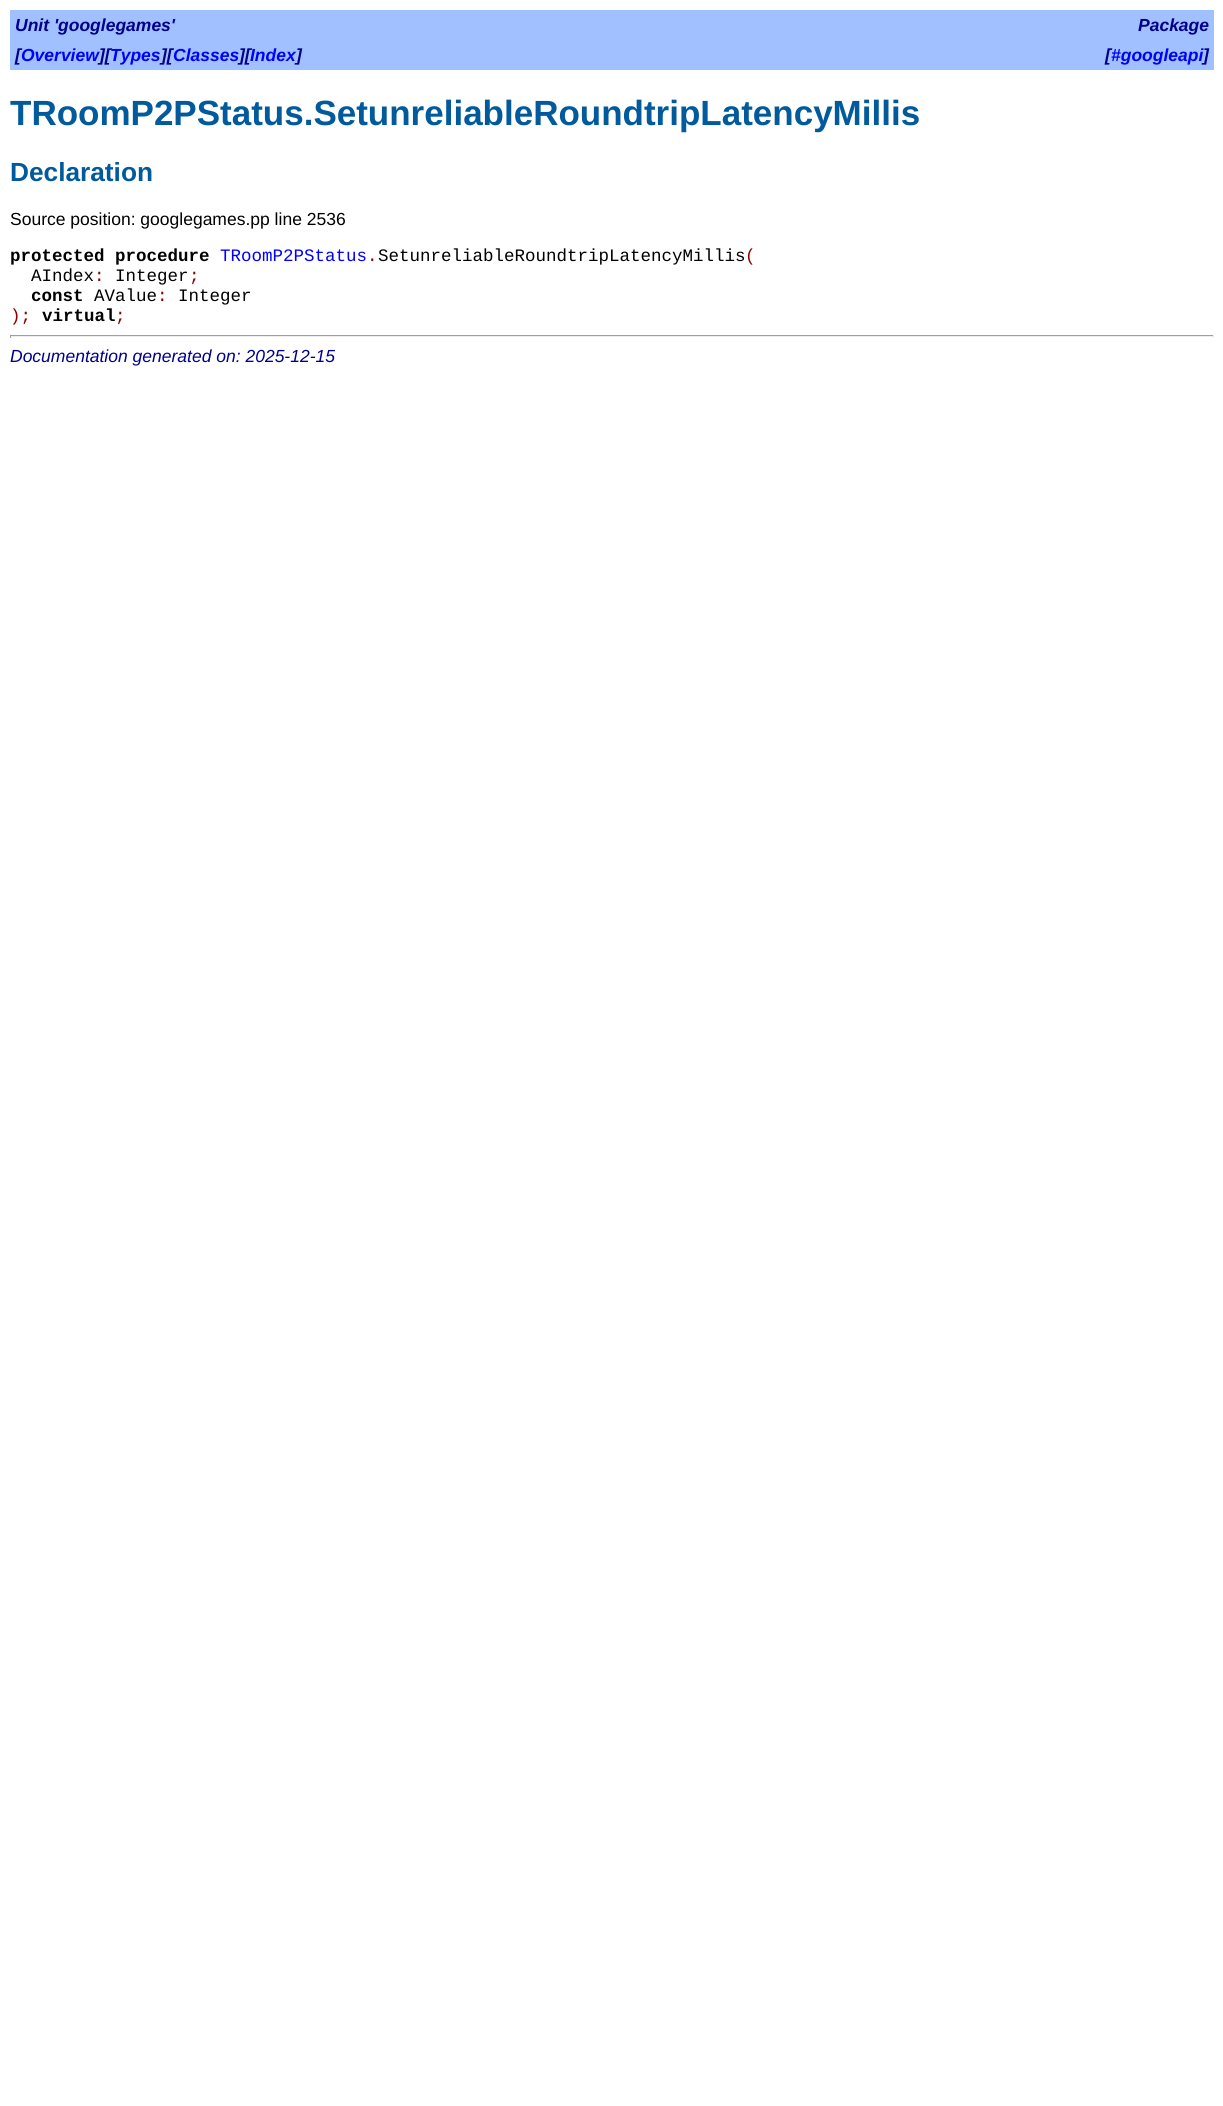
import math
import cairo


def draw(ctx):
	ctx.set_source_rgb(1, 1, 1)
	ctx.paint()
	ctx.set_source_rgb(0.627, 0.753, 1)
	ctx.rectangle(10, 10, 1204, 60)
	ctx.fill()
	ctx.select_font_face('Liberation Sans', cairo.FONT_SLANT_ITALIC, cairo.FONT_WEIGHT_BOLD)
	ctx.set_font_size(17.5)
	ctx.set_source_rgb(0, 0, 0.545)
	for x, y, s in [
		(15, 31, 'Unit \'googlegames\''),
		(1138, 31, 'Package'),
		(15, 61, '['),
	]:
		ctx.move_to(x, y)
		ctx.show_text(s)
	ctx.set_source_rgb(0, 0, 1)
	ctx.move_to(21, 61)
	ctx.show_text('Overview')
	ctx.set_source_rgb(0, 0, 0.545)
	ctx.move_to(99, 61)
	ctx.show_text('][')
	ctx.set_source_rgb(0, 0, 1)
	ctx.move_to(110, 61)
	ctx.show_text('Types')
	ctx.set_source_rgb(0, 0, 0.545)
	ctx.move_to(161, 61)
	ctx.show_text('][')
	ctx.set_source_rgb(0, 0, 1)
	ctx.move_to(173, 61)
	ctx.show_text('Classes')
	ctx.set_source_rgb(0, 0, 0.545)
	ctx.move_to(239, 61)
	ctx.show_text('][')
	ctx.set_source_rgb(0, 0, 1)
	ctx.move_to(250, 61)
	ctx.show_text('Index')
	ctx.set_source_rgb(0, 0, 0.545)
	ctx.move_to(296, 61)
	ctx.show_text(']')
	ctx.move_to(1105, 61)
	ctx.show_text('[')
	ctx.set_source_rgb(0, 0, 1)
	ctx.move_to(1111, 61)
	ctx.show_text('#googleapi')
	ctx.set_source_rgb(0, 0, 0.545)
	ctx.move_to(1203, 61)
	ctx.show_text(']')
	ctx.select_font_face('Liberation Sans', cairo.FONT_SLANT_NORMAL, cairo.FONT_WEIGHT_BOLD)
	ctx.set_font_size(35)
	ctx.set_source_rgb(0, 0.353, 0.612)
	ctx.move_to(10, 125)
	ctx.show_text('TRoomP2PStatus.SetunreliableRoundtripLatencyMillis')
	ctx.set_font_size(26.25)
	ctx.move_to(10, 181)
	ctx.show_text('Declaration')
	ctx.select_font_face('Liberation Sans')
	ctx.set_font_size(17.5)
	ctx.set_source_rgb(0, 0, 0)
	ctx.move_to(10, 225)
	ctx.show_text('Source position: googlegames.pp line 2536')
	ctx.select_font_face('Liberation Mono', cairo.FONT_SLANT_NORMAL, cairo.FONT_WEIGHT_BOLD)
	ctx.move_to(10, 261)
	ctx.show_text('protected procedure')
	ctx.select_font_face('Liberation Mono')
	ctx.set_source_rgb(0, 0, 1)
	ctx.move_to(220, 261)
	ctx.show_text('TRoomP2PStatus')
	ctx.set_source_rgb(0.545, 0, 0)
	ctx.move_to(367, 261)
	ctx.show_text('.')
	ctx.set_source_rgb(0, 0, 0)
	ctx.move_to(378, 261)
	ctx.show_text('SetunreliableRoundtripLatencyMillis')
	ctx.set_source_rgb(0.545, 0, 0)
	ctx.move_to(745, 261)
	ctx.show_text('(')
	ctx.set_source_rgb(0, 0, 0)
	ctx.move_to(31, 281)
	ctx.show_text('AIndex')
	ctx.set_source_rgb(0.545, 0, 0)
	ctx.move_to(94, 281)
	ctx.show_text(':')
	ctx.set_source_rgb(0, 0, 0)
	ctx.move_to(115, 281)
	ctx.show_text('Integer')
	ctx.set_source_rgb(0.545, 0, 0)
	ctx.move_to(189, 281)
	ctx.show_text(';')
	ctx.select_font_face('Liberation Mono', cairo.FONT_SLANT_NORMAL, cairo.FONT_WEIGHT_BOLD)
	ctx.set_source_rgb(0, 0, 0)
	ctx.move_to(31, 301)
	ctx.show_text('const')
	ctx.select_font_face('Liberation Mono')
	ctx.move_to(94, 301)
	ctx.show_text('AValue')
	ctx.set_source_rgb(0.545, 0, 0)
	ctx.move_to(157, 301)
	ctx.show_text(':')
	ctx.set_source_rgb(0, 0, 0)
	ctx.move_to(178, 301)
	ctx.show_text('Integer')
	ctx.set_source_rgb(0.545, 0, 0)
	ctx.move_to(10, 321)
	ctx.show_text(');')
	ctx.select_font_face('Liberation Mono', cairo.FONT_SLANT_NORMAL, cairo.FONT_WEIGHT_BOLD)
	ctx.set_source_rgb(0, 0, 0)
	ctx.move_to(42, 321)
	ctx.show_text('virtual')
	ctx.select_font_face('Liberation Mono')
	ctx.set_source_rgb(0.545, 0, 0)
	ctx.move_to(115, 321)
	ctx.show_text(';')
	ctx.set_source_rgb(0.624, 0.624, 0.624)
	ctx.rectangle(10, 335, 1204, 1)
	ctx.fill()
	ctx.set_source_rgb(0.933, 0.933, 0.933)
	ctx.rectangle(1213, 335, 1, 3)
	ctx.rectangle(10, 336, 1204, 1)
	ctx.fill()
	ctx.set_source_rgb(0.624, 0.624, 0.624)
	ctx.rectangle(10, 335, 1, 3)
	ctx.fill()
	ctx.select_font_face('Liberation Sans', cairo.FONT_SLANT_ITALIC)
	ctx.set_source_rgb(0, 0, 0.545)
	ctx.move_to(10, 362)
	ctx.show_text('Documentation generated on: 2025-12-15')


surface = cairo.ImageSurface(cairo.FORMAT_RGB24, 1223, 2106)
ctx = cairo.Context(surface)
options = cairo.FontOptions()
options.set_hint_metrics(cairo.HINT_METRICS_OFF)
options.set_hint_style(cairo.HINT_STYLE_NONE)
ctx.set_font_options(options)
ctx.set_miter_limit(4)
draw(ctx)
surface.write_to_png('image.png')
